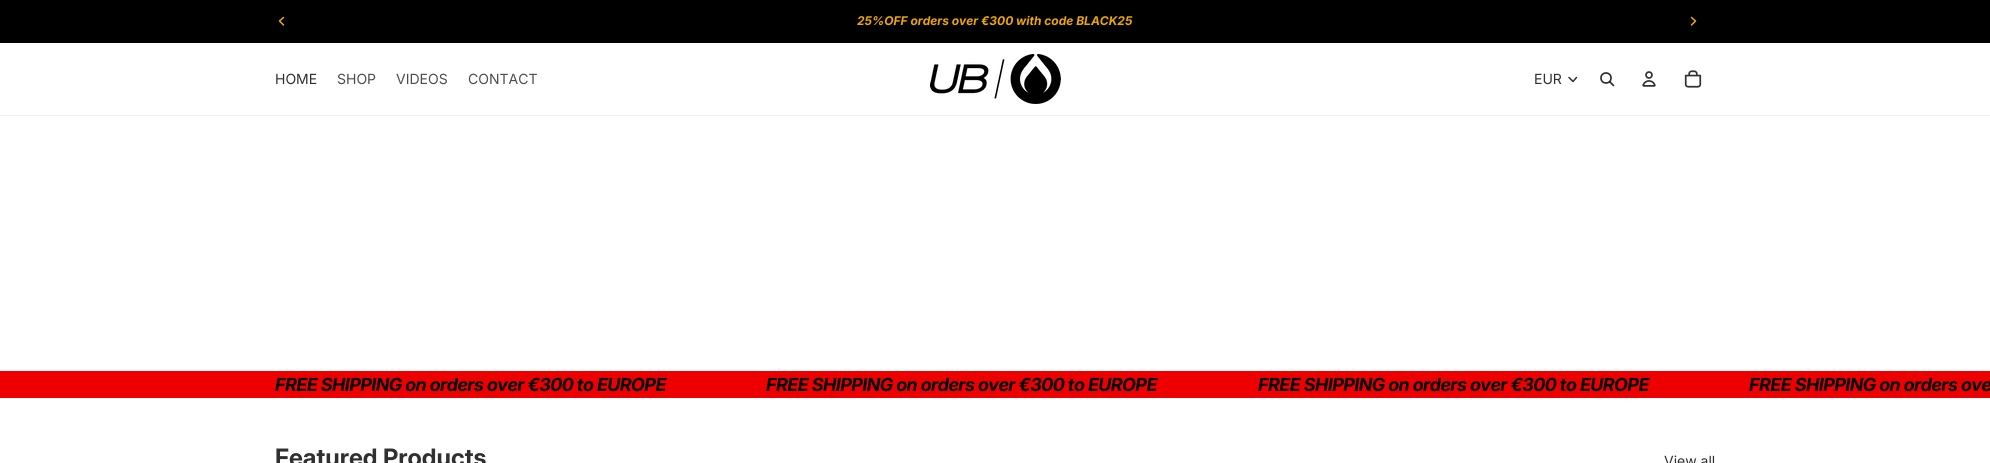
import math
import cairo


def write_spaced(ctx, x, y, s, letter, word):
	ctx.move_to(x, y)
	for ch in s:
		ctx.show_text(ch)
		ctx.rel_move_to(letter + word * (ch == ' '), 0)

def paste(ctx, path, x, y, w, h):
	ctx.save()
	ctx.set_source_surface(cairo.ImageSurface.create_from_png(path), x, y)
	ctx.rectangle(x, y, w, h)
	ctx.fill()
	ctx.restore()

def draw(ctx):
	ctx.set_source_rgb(1, 1, 1)
	ctx.paint()
	ctx.set_source_rgb(0, 0, 0)
	ctx.rectangle(0, 0, 1990, 43)
	ctx.fill()
	ctx.select_font_face('Inter', cairo.FONT_SLANT_ITALIC, cairo.FONT_WEIGHT_BOLD)
	ctx.set_font_size(12)
	ctx.set_source_rgb(0.925, 0.659, 0)
	ctx.move_to(857, 25)
	ctx.show_text('25%OFF orders over €300 with code BLACK25')
	ctx.new_path()
	ctx.move_to(283.5, 17.5)
	ctx.line_to(279.5, 21)
	ctx.line_to(283.5, 25)
	ctx.set_line_width(1.5)
	ctx.set_line_cap(cairo.LINE_CAP_ROUND)
	ctx.set_line_join(cairo.LINE_JOIN_ROUND)
	ctx.stroke()
	ctx.new_path()
	ctx.move_to(1691.5, 17.5)
	ctx.line_to(1695.5, 21)
	ctx.line_to(1691.5, 25)
	ctx.stroke()
	ctx.set_source_rgb(0.941, 0.941, 0.941)
	ctx.rectangle(0, 115, 1990, 1)
	ctx.fill()
	ctx.select_font_face('Inter')
	ctx.set_font_size(14)
	ctx.set_source_rgb(0.188, 0.188, 0.188)
	ctx.move_to(275, 84)
	ctx.show_text('HOME')
	ctx.set_source_rgb(0.302, 0.302, 0.302)
	for x, y, s in [
		(337, 84, 'SHOP'),
		(396, 84, 'VIDEOS'),
		(468, 84, 'CONTACT'),
	]:
		ctx.move_to(x, y)
		ctx.show_text(s)
	paste(ctx, 'media/1.png', 930, 54, 131, 50)
	ctx.set_source_rgb(0.188, 0.188, 0.188)
	ctx.move_to(1534, 84)
	ctx.show_text('EUR')
	ctx.new_path()
	ctx.move_to(1576.5, 77.5)
	ctx.line_to(1573, 81.5)
	ctx.line_to(1569, 77.5)
	ctx.stroke()
	ctx.arc(1606, 78, 5, 0, 2 * math.pi)
	ctx.set_line_width(1.7)
	ctx.set_line_cap(cairo.LINE_CAP_BUTT)
	ctx.set_line_join(cairo.LINE_JOIN_MITER)
	ctx.stroke()
	ctx.new_path()
	ctx.move_to(1610, 82)
	ctx.line_to(1613.5, 85.5)
	ctx.set_source_rgba(0, 0, 0, 0.81)
	ctx.set_line_cap(cairo.LINE_CAP_ROUND)
	ctx.set_line_join(cairo.LINE_JOIN_ROUND)
	ctx.stroke()
	paste(ctx, 'media/2.png', 1642, 71, 14, 16)
	paste(ctx, 'media/3.png', 1684, 70, 18, 18)
	ctx.set_source_rgb(0.933, 0, 0)
	ctx.rectangle(0, 371, 1990, 27)
	ctx.fill()
	ctx.select_font_face('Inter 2', cairo.FONT_SLANT_ITALIC, cairo.FONT_WEIGHT_BOLD)
	ctx.set_font_size(18)
	ctx.set_source_rgb(0, 0, 0)
	for x, y, s in [
		(275, 391, 'FREE SHIPPING on orders over €300 to EUROPE'),
		(766, 391, 'FREE SHIPPING on orders over €300 to EUROPE'),
		(1258, 391, 'FREE SHIPPING on orders over €300 to EUROPE'),
		(1749, 391, 'FREE SHIPPING on orders ove'),
	]:
		write_spaced(ctx, x, y, s, -0.55, 0)
	ctx.select_font_face('Inter', cairo.FONT_SLANT_NORMAL, cairo.FONT_WEIGHT_BOLD)
	ctx.set_font_size(24)
	ctx.set_source_rgb(0.188, 0.188, 0.188)
	ctx.move_to(275, 466)
	ctx.show_text('Featured Products')
	ctx.select_font_face('Inter')
	ctx.set_font_size(14)
	ctx.move_to(1664, 466)
	ctx.show_text('View all')


surface = cairo.ImageSurface(cairo.FORMAT_RGB24, 1990, 463)
ctx = cairo.Context(surface)
options = cairo.FontOptions()
options.set_hint_metrics(cairo.HINT_METRICS_OFF)
options.set_hint_style(cairo.HINT_STYLE_NONE)
ctx.set_font_options(options)
ctx.set_miter_limit(4)
draw(ctx)
surface.write_to_png('image.png')
